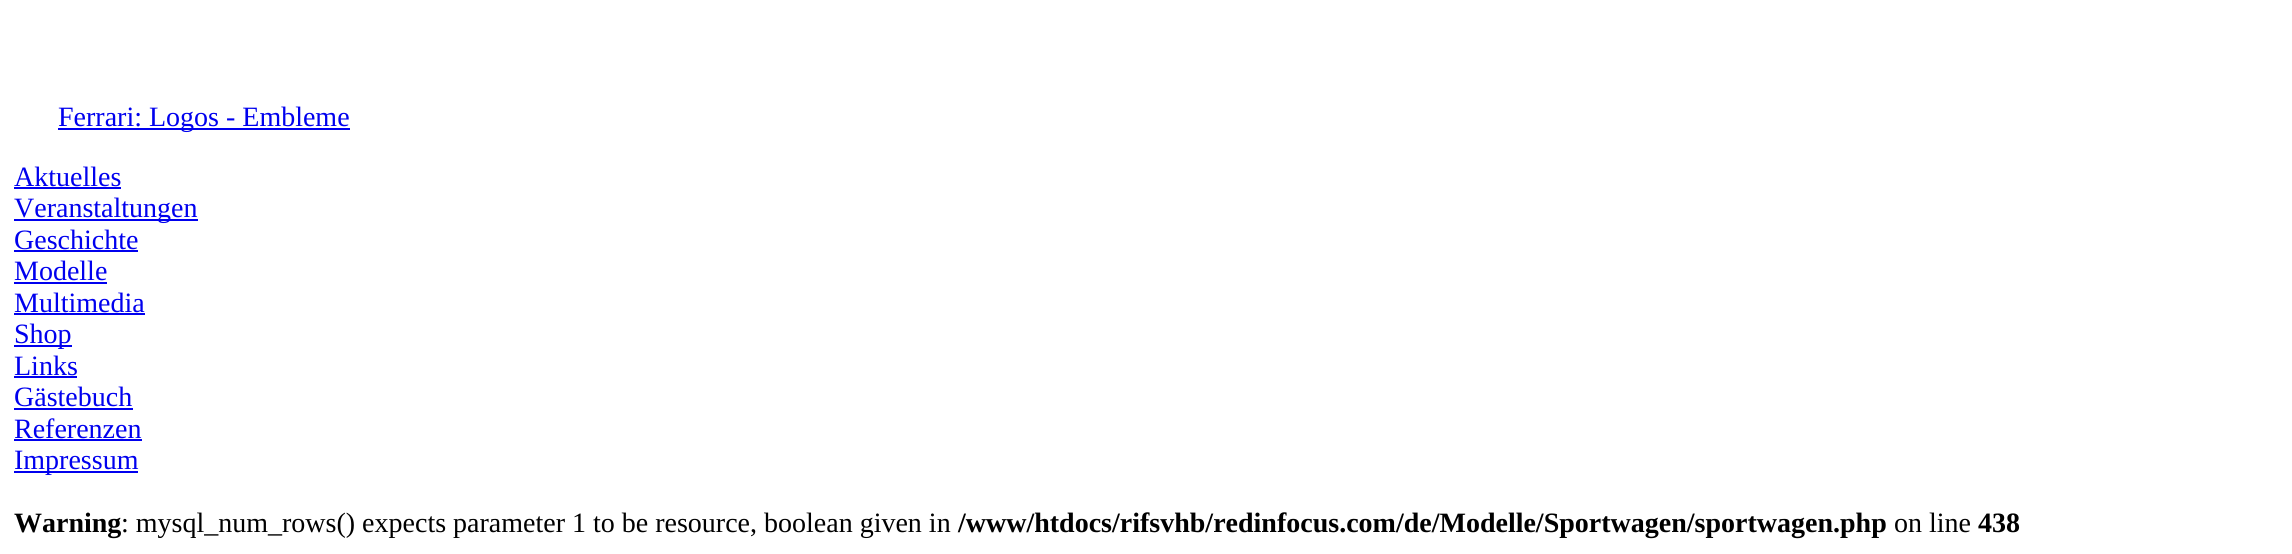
import math
import cairo


def draw(ctx):
	ctx.set_source_rgb(1, 1, 1)
	ctx.paint()
	ctx.set_source_rgb(0, 0, 0.933)
	ctx.rectangle(58, 128, 292, 2)
	ctx.fill()
	ctx.select_font_face('Liberation Serif')
	ctx.set_font_size(28)
	ctx.move_to(58, 126)
	ctx.show_text('Ferrari: Logos - Embleme')
	ctx.move_to(14, 186)
	ctx.show_text('Aktuelles')
	ctx.rectangle(14, 187, 107, 2)
	ctx.fill()
	ctx.rectangle(14, 219, 184, 2)
	ctx.fill()
	ctx.move_to(14, 217)
	ctx.show_text('Veranstaltungen')
	ctx.move_to(14, 249)
	ctx.show_text('Geschichte')
	ctx.rectangle(14, 250, 124, 2)
	ctx.fill()
	ctx.move_to(14, 280)
	ctx.show_text('Modelle')
	ctx.rectangle(14, 282, 93, 2)
	ctx.fill()
	ctx.move_to(14, 312)
	ctx.show_text('Multimedia')
	ctx.rectangle(14, 313, 131, 2)
	ctx.fill()
	ctx.rectangle(14, 345, 58, 2)
	ctx.fill()
	ctx.move_to(14, 343)
	ctx.show_text('Shop')
	ctx.move_to(14, 375)
	ctx.show_text('Links')
	ctx.rectangle(14, 376, 63, 2)
	ctx.fill()
	ctx.move_to(14, 406)
	ctx.show_text('Gästebuch')
	ctx.rectangle(14, 408, 119, 2)
	ctx.fill()
	ctx.move_to(14, 438)
	ctx.show_text('Referenzen')
	ctx.rectangle(14, 439, 128, 2)
	ctx.fill()
	ctx.rectangle(14, 471, 124, 2)
	ctx.fill()
	ctx.move_to(14, 469)
	ctx.show_text('Impressum')
	ctx.select_font_face('Liberation Serif', cairo.FONT_SLANT_NORMAL, cairo.FONT_WEIGHT_BOLD)
	ctx.set_source_rgb(0, 0, 0)
	ctx.move_to(14, 532)
	ctx.show_text('Warning')
	ctx.select_font_face('Liberation Serif')
	ctx.move_to(121, 532)
	ctx.show_text(': mysql_num_rows() expects parameter 1 to be resource, boolean given in')
	ctx.select_font_face('Liberation Serif', cairo.FONT_SLANT_NORMAL, cairo.FONT_WEIGHT_BOLD)
	ctx.move_to(958, 532)
	ctx.show_text('/www/htdocs/rifsvhb/redinfocus.com/de/Modelle/Sportwagen/sportwagen.php')
	ctx.select_font_face('Liberation Serif')
	ctx.move_to(1894, 532)
	ctx.show_text('on line')
	ctx.select_font_face('Liberation Serif', cairo.FONT_SLANT_NORMAL, cairo.FONT_WEIGHT_BOLD)
	ctx.move_to(1978, 532)
	ctx.show_text('438')


surface = cairo.ImageSurface(cairo.FORMAT_RGB24, 2292, 554)
ctx = cairo.Context(surface)
options = cairo.FontOptions()
options.set_hint_metrics(cairo.HINT_METRICS_OFF)
options.set_hint_style(cairo.HINT_STYLE_NONE)
ctx.set_font_options(options)
ctx.set_miter_limit(4)
draw(ctx)
surface.write_to_png('image.png')
